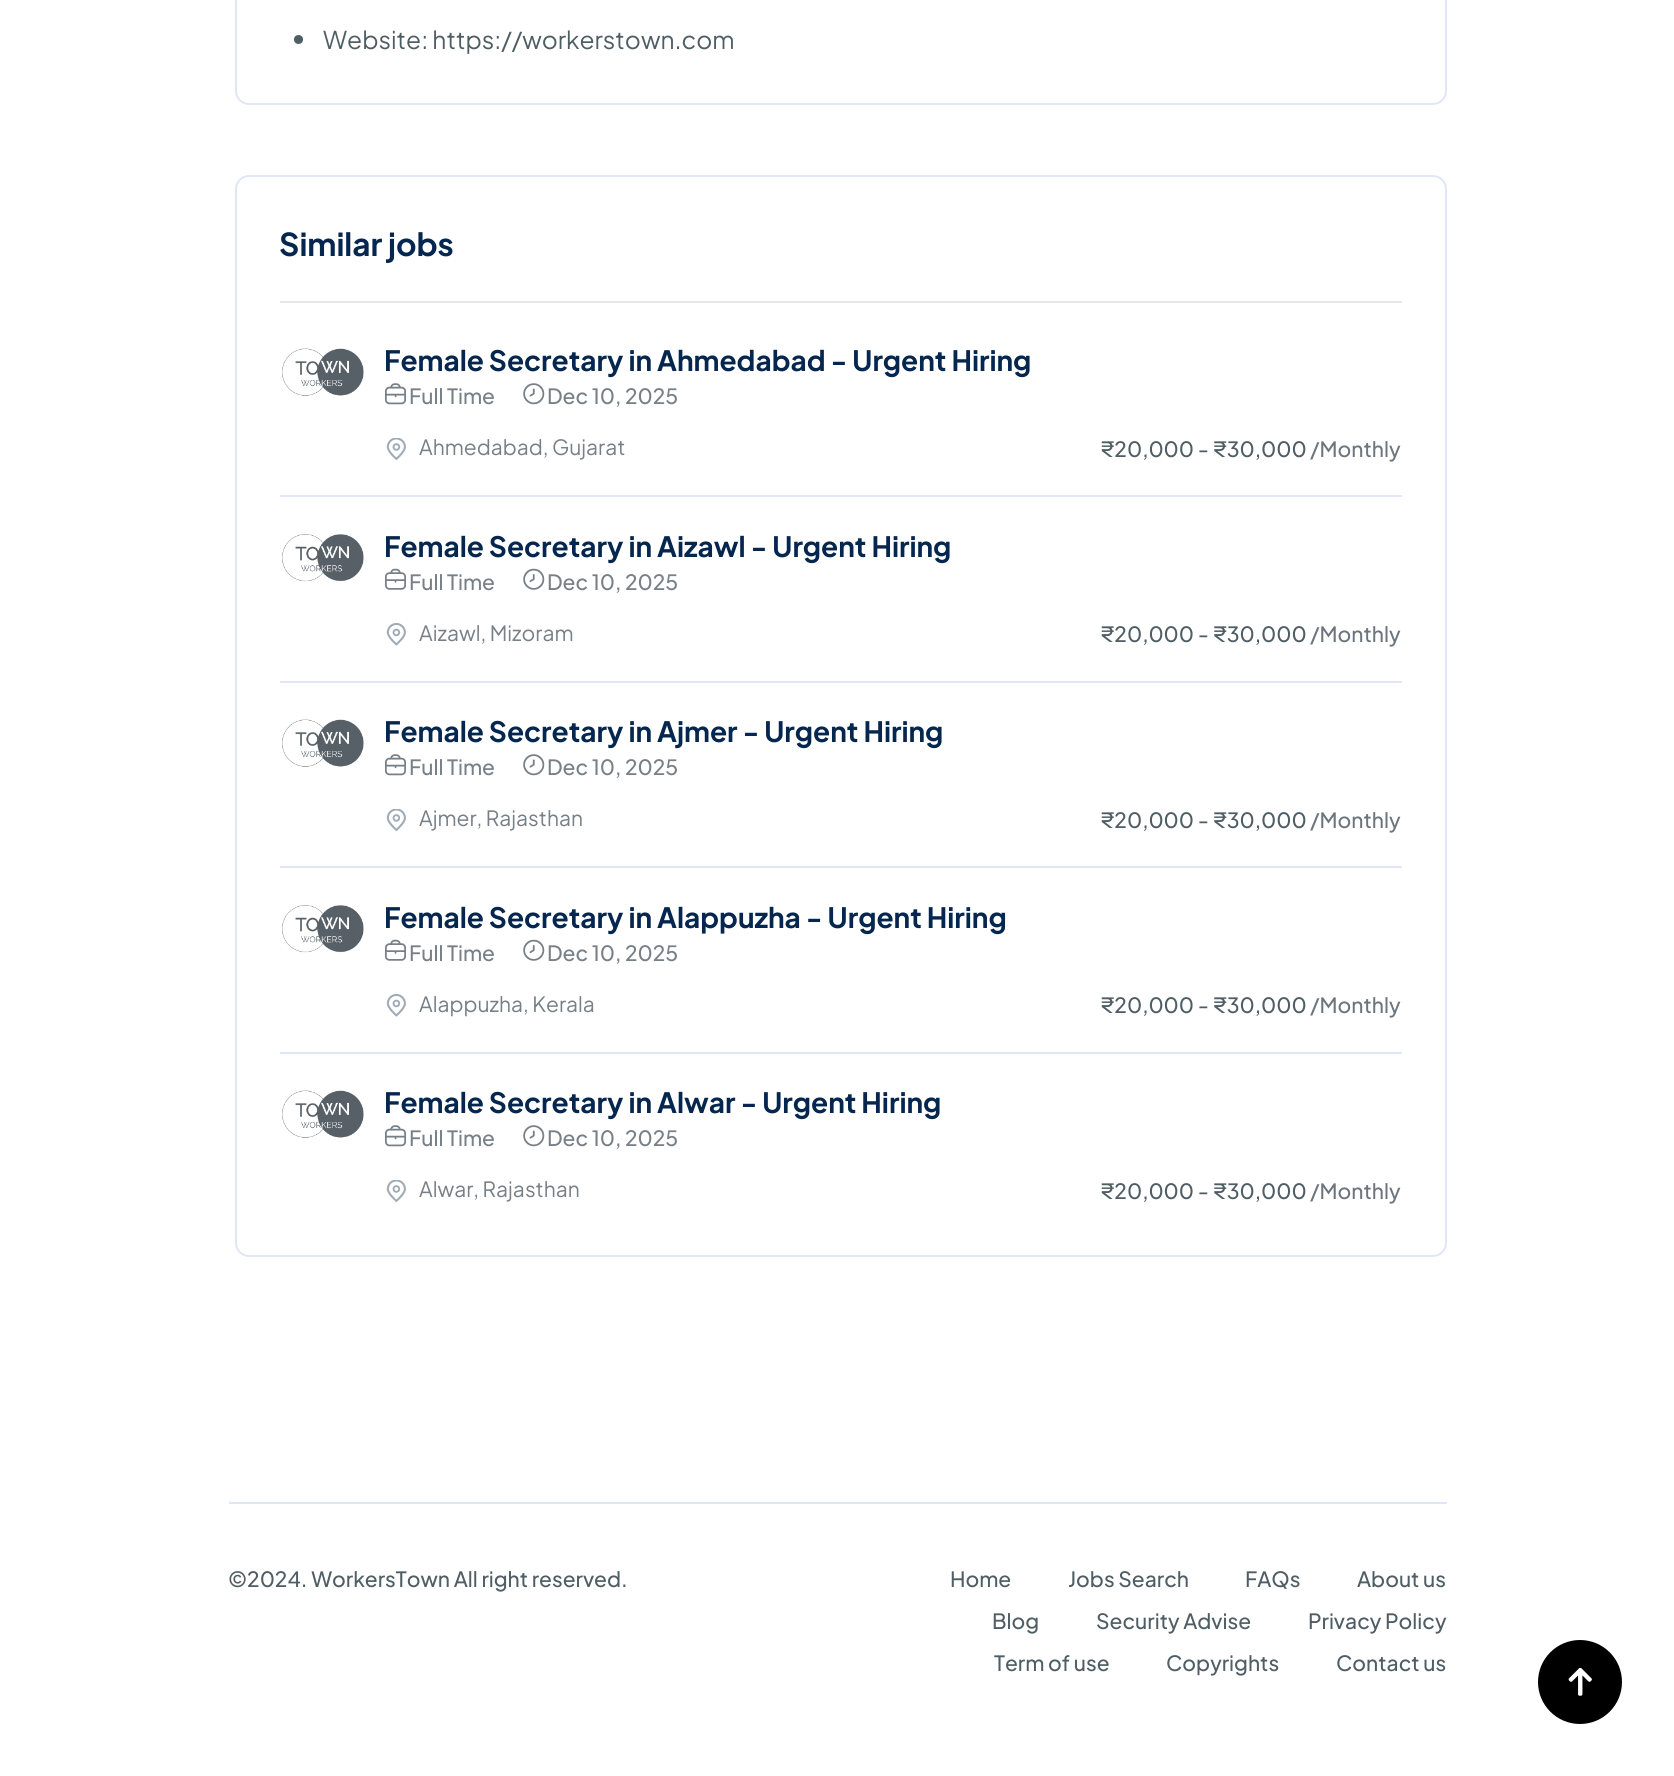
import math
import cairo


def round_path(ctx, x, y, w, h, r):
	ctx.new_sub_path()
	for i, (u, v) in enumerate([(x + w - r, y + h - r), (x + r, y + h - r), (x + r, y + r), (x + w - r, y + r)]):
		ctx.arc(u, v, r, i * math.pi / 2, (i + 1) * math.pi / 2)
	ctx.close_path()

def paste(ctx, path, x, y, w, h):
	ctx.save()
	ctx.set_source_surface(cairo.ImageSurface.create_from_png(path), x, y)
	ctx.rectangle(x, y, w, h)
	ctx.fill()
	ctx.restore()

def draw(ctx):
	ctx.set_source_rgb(1, 1, 1)
	ctx.paint()
	round_path(ctx, 236, -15, 1210, 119, 13)
	ctx.set_source_rgb(0.878, 0.902, 0.969)
	ctx.stroke()
	ctx.set_source_rgb(0.31, 0.369, 0.392)
	ctx.arc(298.5, 39.5, 4.5, 0, 2 * math.pi)
	ctx.fill()
	ctx.select_font_face('Plus Jakarta Sans')
	ctx.set_font_size(24.5)
	ctx.move_to(323, 49)
	ctx.show_text('Website: https://workerstown.com')
	round_path(ctx, 236, 176, 1210, 1080, 13)
	ctx.set_source_rgb(0.878, 0.902, 0.969)
	ctx.stroke()
	ctx.select_font_face('Plus Jakarta Sans', cairo.FONT_SLANT_NORMAL, cairo.FONT_WEIGHT_BOLD)
	ctx.set_font_size(31.5)
	ctx.set_source_rgb(0.02, 0.149, 0.306)
	ctx.move_to(279, 256)
	ctx.show_text('Similar jobs')
	ctx.set_source_rgb(0.902, 0.906, 0.914)
	ctx.rectangle(280, 301, 1122, 2)
	ctx.fill()
	ctx.set_source_rgb(0.878, 0.902, 0.969)
	ctx.rectangle(280, 495, 1122, 2)
	ctx.fill()
	paste(ctx, 'media/1.png', 282, 348, 82, 48)
	ctx.set_font_size(28)
	ctx.set_source_rgb(0.02, 0.149, 0.306)
	ctx.move_to(384, 371)
	ctx.show_text('Female Secretary in Ahmedabad - Urgent Hiring')
	paste(ctx, 'media/2.png', 385, 383, 21, 22)
	ctx.select_font_face('Plus Jakarta Sans Medium')
	ctx.set_font_size(21)
	ctx.set_source_rgb(0.467, 0.498, 0.529)
	ctx.move_to(409, 404)
	ctx.show_text('Full Time')
	paste(ctx, 'media/3.png', 523, 383, 22, 22)
	ctx.move_to(547, 404)
	ctx.show_text('Dec 10, 2025')
	paste(ctx, 'media/4.png', 386, 438, 20, 22)
	ctx.select_font_face('Plus Jakarta Sans')
	ctx.move_to(419, 455)
	ctx.show_text('Ahmedabad, Gujarat')
	ctx.select_font_face('Plus Jakarta Sans Medium')
	ctx.set_source_rgb(0.31, 0.369, 0.392)
	ctx.move_to(1100, 457)
	ctx.show_text('₹20,000 - ₹30,000')
	ctx.set_source_rgb(0.424, 0.459, 0.49)
	ctx.move_to(1310, 457)
	ctx.show_text('/Monthly')
	ctx.set_source_rgb(0.878, 0.902, 0.969)
	ctx.rectangle(280, 681, 1122, 2)
	ctx.fill()
	paste(ctx, 'media/5.png', 282, 534, 82, 48)
	ctx.select_font_face('Plus Jakarta Sans', cairo.FONT_SLANT_NORMAL, cairo.FONT_WEIGHT_BOLD)
	ctx.set_font_size(28)
	ctx.set_source_rgb(0.02, 0.149, 0.306)
	ctx.move_to(384, 557)
	ctx.show_text('Female Secretary in Aizawl - Urgent Hiring')
	paste(ctx, 'media/6.png', 385, 568, 21, 22)
	ctx.select_font_face('Plus Jakarta Sans Medium')
	ctx.set_font_size(21)
	ctx.set_source_rgb(0.467, 0.498, 0.529)
	ctx.move_to(409, 590)
	ctx.show_text('Full Time')
	paste(ctx, 'media/7.png', 523, 568, 22, 22)
	ctx.move_to(547, 590)
	ctx.show_text('Dec 10, 2025')
	paste(ctx, 'media/8.png', 386, 623, 20, 23)
	ctx.select_font_face('Plus Jakarta Sans')
	ctx.move_to(419, 641)
	ctx.show_text('Aizawl, Mizoram')
	ctx.select_font_face('Plus Jakarta Sans Medium')
	ctx.set_source_rgb(0.31, 0.369, 0.392)
	ctx.move_to(1100, 642)
	ctx.show_text('₹20,000 - ₹30,000')
	ctx.set_source_rgb(0.424, 0.459, 0.49)
	ctx.move_to(1310, 642)
	ctx.show_text('/Monthly')
	ctx.set_source_rgb(0.878, 0.902, 0.969)
	ctx.rectangle(280, 866, 1122, 2)
	ctx.fill()
	paste(ctx, 'media/1.png', 282, 719, 82, 48)
	ctx.select_font_face('Plus Jakarta Sans', cairo.FONT_SLANT_NORMAL, cairo.FONT_WEIGHT_BOLD)
	ctx.set_font_size(28)
	ctx.set_source_rgb(0.02, 0.149, 0.306)
	ctx.move_to(384, 742)
	ctx.show_text('Female Secretary in Ajmer - Urgent Hiring')
	paste(ctx, 'media/2.png', 385, 754, 21, 22)
	ctx.select_font_face('Plus Jakarta Sans Medium')
	ctx.set_font_size(21)
	ctx.set_source_rgb(0.467, 0.498, 0.529)
	ctx.move_to(409, 775)
	ctx.show_text('Full Time')
	paste(ctx, 'media/3.png', 523, 754, 22, 22)
	ctx.move_to(547, 775)
	ctx.show_text('Dec 10, 2025')
	paste(ctx, 'media/4.png', 386, 809, 20, 22)
	ctx.select_font_face('Plus Jakarta Sans')
	ctx.move_to(419, 826)
	ctx.show_text('Ajmer, Rajasthan')
	ctx.select_font_face('Plus Jakarta Sans Medium')
	ctx.set_source_rgb(0.31, 0.369, 0.392)
	ctx.move_to(1100, 828)
	ctx.show_text('₹20,000 - ₹30,000')
	ctx.set_source_rgb(0.424, 0.459, 0.49)
	ctx.move_to(1310, 828)
	ctx.show_text('/Monthly')
	ctx.set_source_rgb(0.878, 0.902, 0.969)
	ctx.rectangle(280, 1052, 1122, 2)
	ctx.fill()
	paste(ctx, 'media/5.png', 282, 905, 82, 48)
	ctx.select_font_face('Plus Jakarta Sans', cairo.FONT_SLANT_NORMAL, cairo.FONT_WEIGHT_BOLD)
	ctx.set_font_size(28)
	ctx.set_source_rgb(0.02, 0.149, 0.306)
	ctx.move_to(384, 928)
	ctx.show_text('Female Secretary in Alappuzha - Urgent Hiring')
	paste(ctx, 'media/6.png', 385, 939, 21, 22)
	ctx.select_font_face('Plus Jakarta Sans Medium')
	ctx.set_font_size(21)
	ctx.set_source_rgb(0.467, 0.498, 0.529)
	ctx.move_to(409, 961)
	ctx.show_text('Full Time')
	paste(ctx, 'media/7.png', 523, 939, 22, 22)
	ctx.move_to(547, 961)
	ctx.show_text('Dec 10, 2025')
	paste(ctx, 'media/8.png', 386, 994, 20, 23)
	ctx.select_font_face('Plus Jakarta Sans')
	ctx.move_to(419, 1012)
	ctx.show_text('Alappuzha, Kerala')
	ctx.select_font_face('Plus Jakarta Sans Medium')
	ctx.set_source_rgb(0.31, 0.369, 0.392)
	ctx.move_to(1100, 1013)
	ctx.show_text('₹20,000 - ₹30,000')
	ctx.set_source_rgb(0.424, 0.459, 0.49)
	ctx.move_to(1310, 1013)
	ctx.show_text('/Monthly')
	paste(ctx, 'media/1.png', 282, 1090, 82, 48)
	ctx.select_font_face('Plus Jakarta Sans', cairo.FONT_SLANT_NORMAL, cairo.FONT_WEIGHT_BOLD)
	ctx.set_font_size(28)
	ctx.set_source_rgb(0.02, 0.149, 0.306)
	ctx.move_to(384, 1113)
	ctx.show_text('Female Secretary in Alwar - Urgent Hiring')
	paste(ctx, 'media/2.png', 385, 1125, 21, 22)
	ctx.select_font_face('Plus Jakarta Sans Medium')
	ctx.set_font_size(21)
	ctx.set_source_rgb(0.467, 0.498, 0.529)
	ctx.move_to(409, 1146)
	ctx.show_text('Full Time')
	paste(ctx, 'media/3.png', 523, 1125, 22, 22)
	ctx.move_to(547, 1146)
	ctx.show_text('Dec 10, 2025')
	paste(ctx, 'media/4.png', 386, 1180, 20, 22)
	ctx.select_font_face('Plus Jakarta Sans')
	ctx.move_to(419, 1197)
	ctx.show_text('Alwar, Rajasthan')
	ctx.select_font_face('Plus Jakarta Sans Medium')
	ctx.set_source_rgb(0.31, 0.369, 0.392)
	ctx.move_to(1100, 1199)
	ctx.show_text('₹20,000 - ₹30,000')
	ctx.set_source_rgb(0.424, 0.459, 0.49)
	ctx.move_to(1310, 1199)
	ctx.show_text('/Monthly')
	ctx.set_source_rgb(0.878, 0.902, 0.969)
	ctx.rectangle(229, 1502, 1218, 2)
	ctx.fill()
	ctx.set_source_rgb(0.31, 0.369, 0.392)
	for x, y, s in [
		(228, 1587, '©2024. WorkersTown All right reserved.'),
		(950, 1587, 'Home'),
		(1068, 1587, 'Jobs Search'),
		(1245, 1587, 'FAQs'),
		(1357, 1587, 'About us'),
		(992, 1629, 'Blog'),
		(1096, 1629, 'Security Advise'),
		(1308, 1629, 'Privacy Policy'),
		(994, 1671, 'Term of use'),
		(1166, 1671, 'Copyrights'),
		(1336, 1671, 'Contact us'),
	]:
		ctx.move_to(x, y)
		ctx.show_text(s)
	ctx.set_source_rgb(0, 0, 0)
	ctx.new_path()
	ctx.arc(1580, 1682, 42, 0, 2 * math.pi)
	ctx.fill()
	paste(ctx, 'media/9.png', 1568, 1668, 24, 28)


surface = cairo.ImageSurface(cairo.FORMAT_RGB24, 1674, 1776)
ctx = cairo.Context(surface)
options = cairo.FontOptions()
options.set_hint_metrics(cairo.HINT_METRICS_OFF)
options.set_hint_style(cairo.HINT_STYLE_NONE)
ctx.set_font_options(options)
ctx.set_miter_limit(4)
draw(ctx)
surface.write_to_png('image.png')
